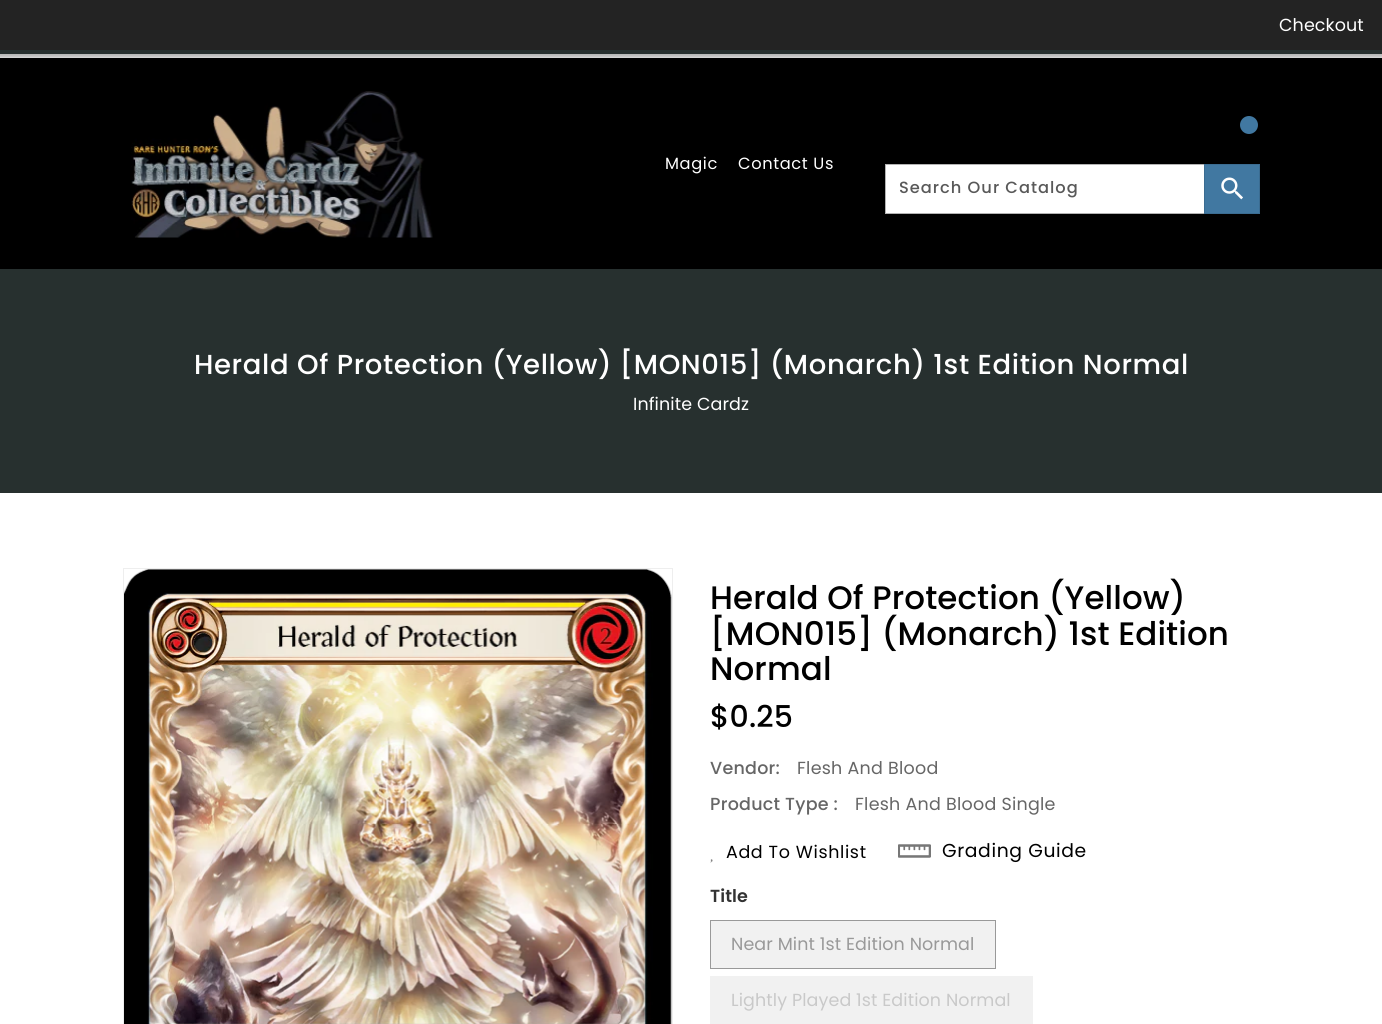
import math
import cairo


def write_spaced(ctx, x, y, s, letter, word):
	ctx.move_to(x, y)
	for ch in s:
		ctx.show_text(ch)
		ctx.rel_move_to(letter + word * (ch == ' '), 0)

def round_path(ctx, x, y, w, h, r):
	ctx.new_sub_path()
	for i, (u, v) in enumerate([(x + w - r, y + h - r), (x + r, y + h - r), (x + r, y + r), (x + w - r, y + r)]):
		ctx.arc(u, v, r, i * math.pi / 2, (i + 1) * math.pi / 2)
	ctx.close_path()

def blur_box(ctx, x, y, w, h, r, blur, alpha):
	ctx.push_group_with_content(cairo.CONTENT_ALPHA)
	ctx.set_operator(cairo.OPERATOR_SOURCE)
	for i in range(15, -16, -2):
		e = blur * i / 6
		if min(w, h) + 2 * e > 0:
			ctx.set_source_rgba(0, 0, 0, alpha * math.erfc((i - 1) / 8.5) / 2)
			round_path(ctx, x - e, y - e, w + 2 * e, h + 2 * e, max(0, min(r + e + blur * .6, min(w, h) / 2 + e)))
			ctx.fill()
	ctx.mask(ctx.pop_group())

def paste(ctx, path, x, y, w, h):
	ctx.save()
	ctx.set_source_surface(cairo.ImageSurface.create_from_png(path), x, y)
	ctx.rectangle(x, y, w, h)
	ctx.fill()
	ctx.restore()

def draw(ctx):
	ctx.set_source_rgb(1, 1, 1)
	ctx.paint()
	ctx.set_source_rgb(0, 0, 0)
	blur_box(ctx, -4, -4, 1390, 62, 0, 2.5, 0.3)
	ctx.set_source_rgb(0.137, 0.137, 0.137)
	ctx.rectangle(0, 0, 1382, 50)
	ctx.fill()
	ctx.set_source_rgb(0.153, 0.188, 0.184)
	ctx.rectangle(0, 50, 1382, 4)
	ctx.fill()
	ctx.select_font_face('Poppins')
	ctx.set_font_size(17.5)
	ctx.set_source_rgb(1, 1, 1)
	write_spaced(ctx, 1279, 31, 'Checkout', 0.1, 0)
	ctx.set_source_rgb(0, 0, 0)
	ctx.rectangle(0, 58, 1382, 211)
	ctx.fill()
	paste(ctx, 'media/1.png', 131, 91, 302, 147)
	ctx.set_font_size(16.25)
	ctx.set_source_rgb(1, 1, 1)
	write_spaced(ctx, 665, 169, 'Magic', 0.62, 0)
	write_spaced(ctx, 738, 169, 'Contact Us', 0.62, 0)
	ctx.set_source_rgb(0.255, 0.471, 0.631)
	ctx.new_path()
	ctx.arc(1249, 125, 9, 0, 2 * math.pi)
	ctx.fill()
	ctx.set_source_rgb(1, 1, 1)
	ctx.rectangle(886, 165, 318, 48)
	ctx.fill()
	ctx.rectangle(885.5, 164.5, 374, 49)
	ctx.set_source_rgb(0.702, 0.702, 0.702)
	ctx.set_line_width(1)
	ctx.stroke()
	ctx.select_font_face('Poppins Medium')
	ctx.set_source_rgb(0.349, 0.349, 0.349)
	write_spaced(ctx, 899, 193, 'Search Our Catalog', 1, 0)
	ctx.set_source_rgb(0.255, 0.471, 0.631)
	ctx.rectangle(1204.5, 164.5, 55, 49)
	ctx.fill_preserve()
	ctx.set_source_rgb(0.231, 0.424, 0.569)
	ctx.stroke()
	paste(ctx, 'media/2.png', 1221, 177, 22, 23)
	ctx.set_source_rgb(0.153, 0.188, 0.184)
	ctx.rectangle(0, 269, 1382, 224)
	ctx.fill()
	ctx.set_font_size(27.5)
	ctx.set_source_rgb(1, 1, 1)
	write_spaced(ctx, 194, 374, 'Herald Of Protection (Yellow) [MON015] (Monarch) 1st Edition Normal', 0.62, 0)
	ctx.select_font_face('Poppins')
	ctx.set_font_size(17.5)
	write_spaced(ctx, 633, 410, 'Infinite Cardz', 0.1, 0)
	ctx.rectangle(123.5, 568.5, 549, 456)
	ctx.set_source_rgb(0.933, 0.933, 0.933)
	ctx.stroke()
	paste(ctx, 'media/3.png', 124, 569, 548, 455)
	ctx.select_font_face('Poppins Medium')
	ctx.set_font_size(32.5)
	ctx.set_source_rgb(0, 0, 0)
	for x, y, s in [
		(710, 609, 'Herald Of Protection (Yellow)'),
		(710, 645, '[MON015] (Monarch) 1st Edition'),
		(710, 680, 'Normal'),
	]:
		write_spaced(ctx, x, y, s, 0.1, 0)
	ctx.set_font_size(30)
	write_spaced(ctx, 710, 727, '$0.25', 0.1, 0)
	ctx.set_font_size(17.5)
	ctx.set_source_rgb(0.4, 0.4, 0.4)
	write_spaced(ctx, 710, 774, 'Vendor:', 0.25, 0)
	ctx.select_font_face('Poppins')
	write_spaced(ctx, 797, 774, 'Flesh And Blood', 0.25, 0)
	ctx.select_font_face('Poppins Medium')
	write_spaced(ctx, 710, 810, 'Product Type :', 0.25, 0)
	ctx.select_font_face('Poppins')
	write_spaced(ctx, 855, 810, 'Flesh And Blood Single', 0.25, 0)
	ctx.set_source_rgb(0, 0, 0)
	write_spaced(ctx, 726, 858, 'Add To Wishlist', 0.62, 0)
	paste(ctx, 'media/4.png', 710, 859, 3, 4)
	paste(ctx, 'media/5.png', 898, 844, 33, 14)
	ctx.set_font_size(18.75)
	write_spaced(ctx, 942, 857, 'Grading Guide', 0.62, 0)
	ctx.select_font_face('Poppins SemiBold')
	ctx.set_font_size(17.5)
	ctx.set_source_rgb(0.2, 0.2, 0.2)
	write_spaced(ctx, 710, 902, 'Title', 0.1, 0)
	ctx.set_source_rgb(0.945, 0.945, 0.945)
	ctx.rectangle(710.5, 920.5, 285, 48)
	ctx.fill_preserve()
	ctx.set_source_rgb(0.6, 0.6, 0.6)
	ctx.stroke()
	ctx.select_font_face('Poppins')
	write_spaced(ctx, 731, 950, 'Near Mint 1st Edition Normal', 0.1, 0)
	ctx.set_source_rgb(0.945, 0.945, 0.945)
	ctx.rectangle(710, 976, 323, 48)
	ctx.fill()
	ctx.set_source_rgb(0.788, 0.788, 0.788)
	write_spaced(ctx, 731, 1006, 'Lightly Played 1st Edition Normal', 0.1, 0)


surface = cairo.ImageSurface(cairo.FORMAT_RGB24, 1382, 1024)
ctx = cairo.Context(surface)
options = cairo.FontOptions()
options.set_hint_metrics(cairo.HINT_METRICS_OFF)
options.set_hint_style(cairo.HINT_STYLE_NONE)
ctx.set_font_options(options)
ctx.set_miter_limit(4)
draw(ctx)
surface.write_to_png('image.png')
